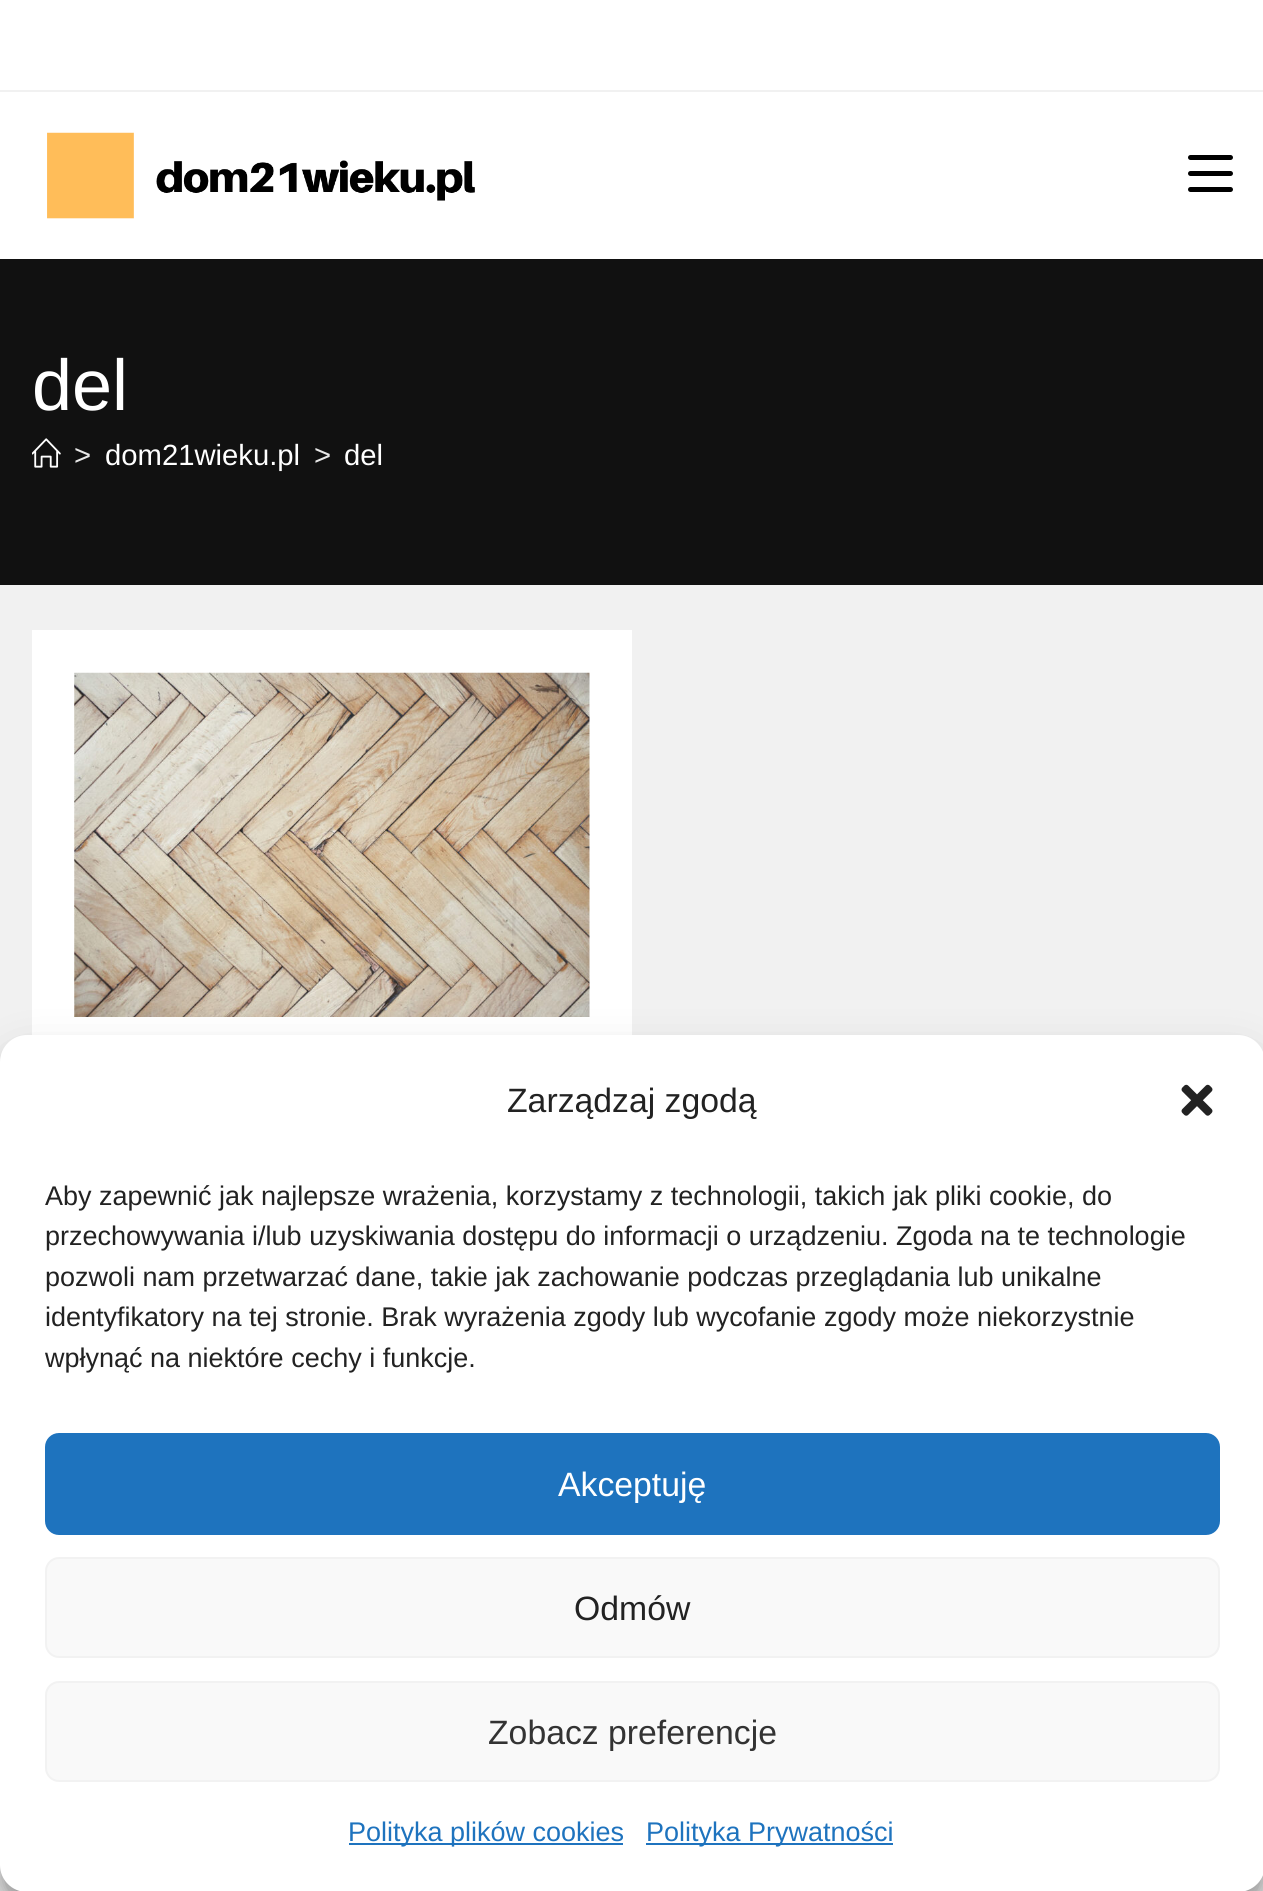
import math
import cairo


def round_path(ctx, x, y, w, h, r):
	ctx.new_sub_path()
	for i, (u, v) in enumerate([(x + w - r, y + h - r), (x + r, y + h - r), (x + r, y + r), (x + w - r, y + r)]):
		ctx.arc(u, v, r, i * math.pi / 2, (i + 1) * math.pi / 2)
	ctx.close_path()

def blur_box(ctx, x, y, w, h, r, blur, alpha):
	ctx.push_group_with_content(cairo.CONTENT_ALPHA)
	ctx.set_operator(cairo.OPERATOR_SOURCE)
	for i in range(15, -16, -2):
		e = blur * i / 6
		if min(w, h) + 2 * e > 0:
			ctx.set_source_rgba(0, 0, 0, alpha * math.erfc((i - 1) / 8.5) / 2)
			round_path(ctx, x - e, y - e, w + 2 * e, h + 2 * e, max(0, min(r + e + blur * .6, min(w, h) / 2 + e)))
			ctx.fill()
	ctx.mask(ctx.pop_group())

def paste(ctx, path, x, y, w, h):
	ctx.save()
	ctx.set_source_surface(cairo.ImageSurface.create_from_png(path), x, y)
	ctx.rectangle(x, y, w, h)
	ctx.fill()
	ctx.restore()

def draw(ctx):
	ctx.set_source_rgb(0.945, 0.945, 0.945)
	ctx.paint()
	ctx.set_source_rgb(1, 1, 1)
	ctx.rectangle(0, 0, 1263, 90)
	ctx.fill()
	ctx.rectangle(0, 92, 1263, 167)
	ctx.fill()
	paste(ctx, 'media/1.png', 47, 132, 428, 87)
	ctx.set_source_rgb(0, 0, 0)
	round_path(ctx, 1188, 171, 45, 5, 2.5)
	ctx.fill()
	round_path(ctx, 1188, 155, 45, 5, 2.5)
	ctx.fill()
	round_path(ctx, 1188, 187, 45, 5, 2.5)
	ctx.fill()
	ctx.set_source_rgb(0.067, 0.067, 0.067)
	ctx.rectangle(0, 259, 1263, 326)
	ctx.fill()
	ctx.select_font_face('Liberation Sans')
	ctx.set_font_size(72)
	ctx.set_source_rgb(1, 1, 1)
	ctx.move_to(32, 410)
	ctx.show_text('del')
	paste(ctx, 'media/2.png', 32, 438, 29, 30)
	ctx.set_font_size(29.25)
	ctx.set_source_rgb(0.91, 0.91, 0.91)
	ctx.move_to(74, 465)
	ctx.show_text('>')
	ctx.set_source_rgb(1, 1, 1)
	ctx.move_to(105, 465)
	ctx.show_text('dom21wieku.pl')
	ctx.set_source_rgb(0.91, 0.91, 0.91)
	ctx.move_to(314, 465)
	ctx.show_text('>')
	ctx.set_source_rgb(1, 1, 1)
	ctx.move_to(344, 465)
	ctx.show_text('del')
	ctx.rectangle(32, 630, 600, 405)
	ctx.fill()
	paste(ctx, 'media/3.png', 74, 672, 516, 345)
	ctx.set_source_rgb(0, 0, 0)
	blur_box(ctx, 0, 1049, 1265, 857, 27, 7, 0.23)
	blur_box(ctx, 0, 1058, 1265, 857, 27, 22.5, 0.19)
	ctx.set_source_rgb(1, 1, 1)
	round_path(ctx, 0, 1035, 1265, 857, 27)
	ctx.fill()
	ctx.set_font_size(33.75)
	ctx.set_source_rgb(0.133, 0.133, 0.133)
	ctx.move_to(507, 1112)
	ctx.show_text('Zarządzaj zgodą')
	paste(ctx, 'media/4.png', 1181, 1084, 32, 32)
	ctx.set_font_size(27)
	for x, y, s in [
		(45, 1205, 'Aby zapewnić jak najlepsze wrażenia, korzystamy z technologii, takich jak pliki cookie, do'),
		(45, 1245, 'przechowywania i/lub uzyskiwania dostępu do informacji o urządzeniu. Zgoda na te technologie'),
		(45, 1286, 'pozwoli nam przetwarzać dane, takie jak zachowanie podczas przeglądania lub unikalne'),
		(45, 1326, 'identyfikatory na tej stronie. Brak wyrażenia zgody lub wycofanie zgody może niekorzystnie'),
		(45, 1367, 'wpłynąć na niektóre cechy i funkcje.'),
	]:
		ctx.move_to(x, y)
		ctx.show_text(s)
	ctx.set_source_rgb(0.118, 0.451, 0.745)
	round_path(ctx, 46, 1434, 1173, 100, 13)
	ctx.fill_preserve()
	ctx.stroke()
	ctx.set_font_size(33.75)
	ctx.set_source_rgb(1, 1, 1)
	ctx.move_to(558, 1496)
	ctx.show_text('Akceptuję')
	ctx.set_source_rgb(0.976, 0.976, 0.976)
	round_path(ctx, 46, 1558, 1173, 99, 13)
	ctx.fill_preserve()
	ctx.set_source_rgb(0.949, 0.949, 0.949)
	ctx.stroke()
	ctx.set_source_rgb(0.133, 0.133, 0.133)
	ctx.move_to(574, 1620)
	ctx.show_text('Odmów')
	ctx.set_source_rgb(0.976, 0.976, 0.976)
	round_path(ctx, 46, 1682, 1173, 99, 13)
	ctx.fill_preserve()
	ctx.set_source_rgb(0.949, 0.949, 0.949)
	ctx.stroke()
	ctx.set_source_rgb(0.2, 0.2, 0.2)
	ctx.move_to(488, 1744)
	ctx.show_text('Zobacz preferencje')
	ctx.set_source_rgb(0.118, 0.451, 0.745)
	ctx.rectangle(349, 1843, 274, 2)
	ctx.fill()
	ctx.set_font_size(27)
	ctx.move_to(348, 1841)
	ctx.show_text('Polityka plików cookies')
	ctx.rectangle(646, 1843, 247, 2)
	ctx.fill()
	ctx.move_to(646, 1841)
	ctx.show_text('Polityka Prywatności')


surface = cairo.ImageSurface(cairo.FORMAT_RGB24, 1263, 1891)
ctx = cairo.Context(surface)
options = cairo.FontOptions()
options.set_hint_metrics(cairo.HINT_METRICS_OFF)
options.set_hint_style(cairo.HINT_STYLE_NONE)
ctx.set_font_options(options)
ctx.set_miter_limit(4)
draw(ctx)
surface.write_to_png('image.png')
